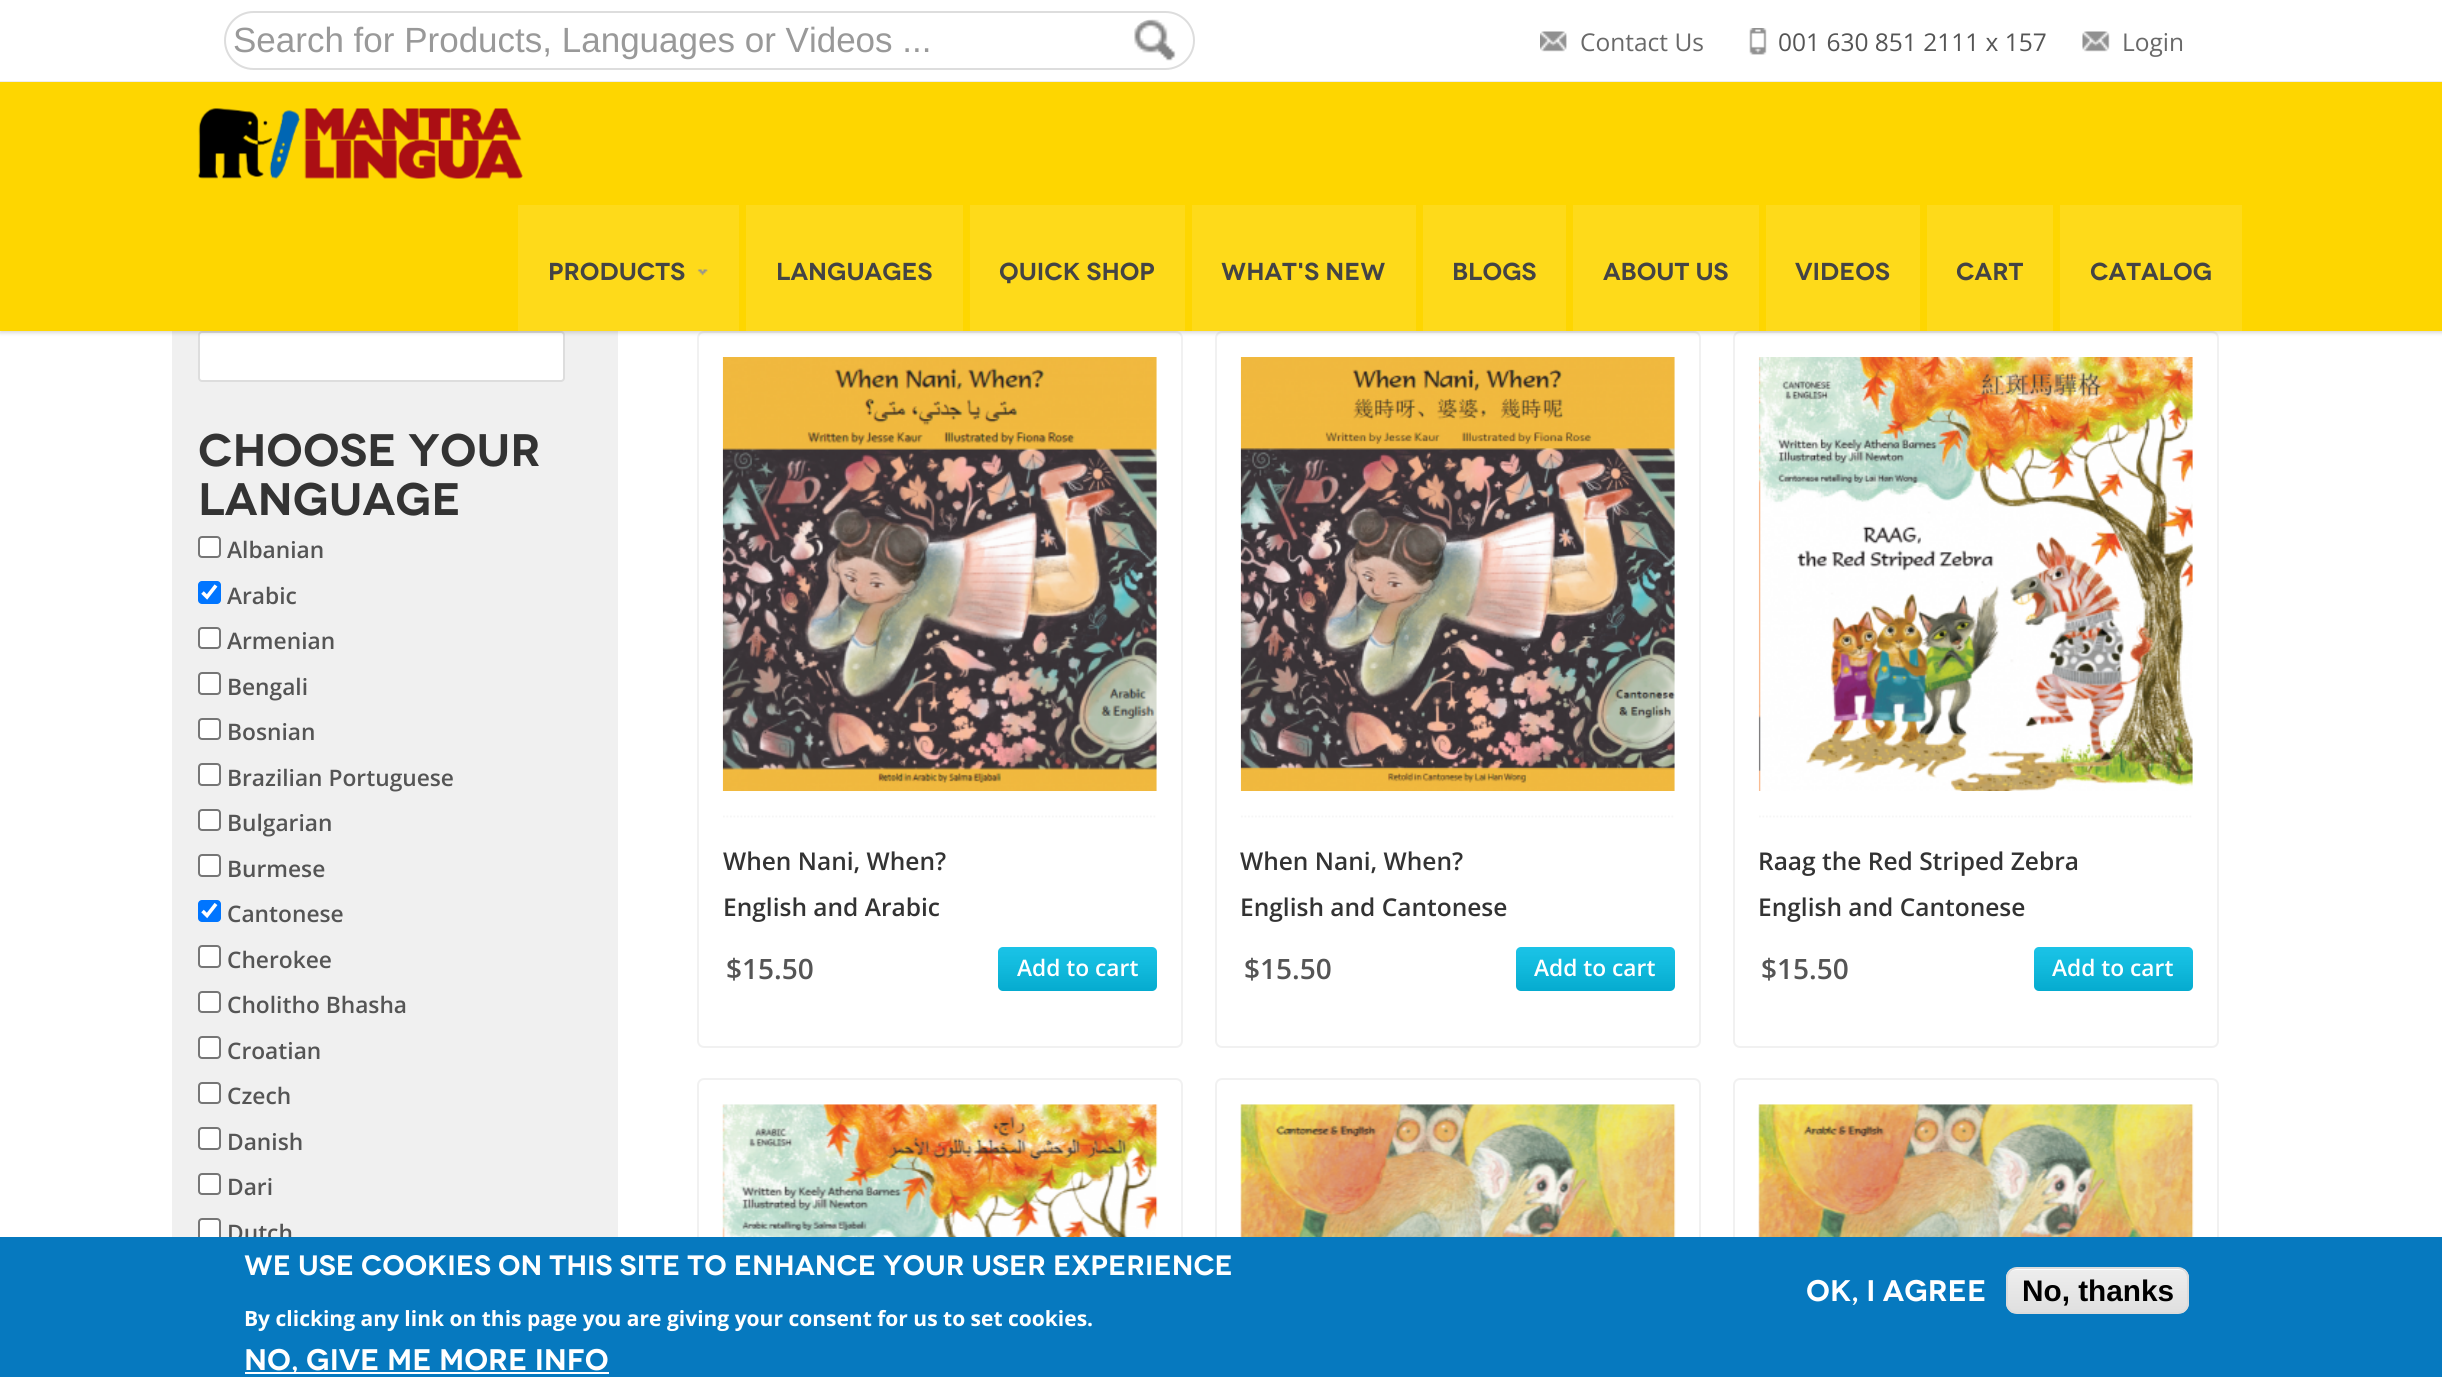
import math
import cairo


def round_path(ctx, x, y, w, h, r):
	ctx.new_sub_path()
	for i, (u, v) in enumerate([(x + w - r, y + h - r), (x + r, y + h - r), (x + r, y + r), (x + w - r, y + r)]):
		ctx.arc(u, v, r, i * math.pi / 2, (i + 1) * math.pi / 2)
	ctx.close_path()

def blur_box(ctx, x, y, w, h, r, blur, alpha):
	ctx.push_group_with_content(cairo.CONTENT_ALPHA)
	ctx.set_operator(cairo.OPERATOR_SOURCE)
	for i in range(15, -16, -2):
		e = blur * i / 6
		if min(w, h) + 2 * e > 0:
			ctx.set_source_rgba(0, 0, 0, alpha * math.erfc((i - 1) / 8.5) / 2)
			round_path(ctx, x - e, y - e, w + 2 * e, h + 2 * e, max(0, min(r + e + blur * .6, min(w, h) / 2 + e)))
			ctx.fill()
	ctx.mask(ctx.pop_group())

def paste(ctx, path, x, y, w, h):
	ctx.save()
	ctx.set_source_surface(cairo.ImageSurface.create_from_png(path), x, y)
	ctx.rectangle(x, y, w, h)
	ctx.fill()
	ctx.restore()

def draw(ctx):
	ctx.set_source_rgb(1, 1, 1)
	ctx.paint()
	ctx.set_source_rgb(0.941, 0.941, 0.941)
	ctx.rectangle(172, 331, 446, 906)
	ctx.fill()
	ctx.set_source_rgb(1, 1, 1)
	round_path(ctx, 199, 332, 365, 49, 3)
	ctx.fill_preserve()
	ctx.set_source_rgb(0.867, 0.867, 0.867)
	ctx.stroke()
	round_path(ctx, 698, 332, 484, 715, 6)
	ctx.set_source_rgb(0.945, 0.945, 0.945)
	ctx.stroke()
	round_path(ctx, 1216, 332, 484, 715, 6)
	ctx.stroke()
	round_path(ctx, 1734, 332, 484, 715, 6)
	ctx.stroke()
	ctx.set_source_rgb(0, 0, 0)
	blur_box(ctx, 0, 2, 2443, 331, 0, 2, 0.15)
	ctx.set_source_rgb(1, 1, 1)
	ctx.rectangle(0, 0, 2442, 81)
	ctx.fill()
	ctx.set_source_rgb(0.933, 0.933, 0.933)
	ctx.rectangle(0, 81, 2442, 1)
	ctx.fill()
	round_path(ctx, 225, 12, 969, 57, 28.5)
	ctx.set_source_rgb(0.867, 0.867, 0.867)
	ctx.stroke()
	ctx.select_font_face('Liberation Sans')
	ctx.set_font_size(35)
	ctx.set_source_rgb(0.6, 0.6, 0.6)
	ctx.move_to(233, 52)
	ctx.show_text('Search for Products, Languages or Videos ...')
	paste(ctx, 'media/1.png', 1134, 19, 42, 42)
	paste(ctx, 'media/2.png', 1540, 31, 27, 21)
	ctx.select_font_face('Open Sans')
	ctx.set_font_size(24.5)
	ctx.set_source_rgb(0.412, 0.412, 0.412)
	ctx.move_to(1580, 51)
	ctx.show_text('Contact Us')
	paste(ctx, 'media/3.png', 1749, 28, 18, 27)
	ctx.set_source_rgb(0.333, 0.333, 0.333)
	ctx.move_to(1778, 51)
	ctx.show_text('001 630 851 2111 x 157')
	paste(ctx, 'media/4.png', 2082, 31, 28, 21)
	ctx.set_source_rgb(0.412, 0.412, 0.412)
	ctx.move_to(2122, 51)
	ctx.show_text('Login')
	ctx.set_source_rgb(0.996, 0.839, 0)
	ctx.rectangle(0, 82, 2442, 249)
	ctx.fill()
	paste(ctx, 'media/5.png', 198, 108, 325, 71)
	ctx.set_source_rgb(0.996, 0.855, 0.102)
	ctx.rectangle(518, 205, 221, 126)
	ctx.fill()
	ctx.select_font_face('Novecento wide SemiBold')
	ctx.set_source_rgb(0.267, 0.267, 0.267)
	ctx.move_to(548, 280)
	ctx.show_text('PRODUCTS')
	paste(ctx, 'media/6.png', 697, 269, 11, 7)
	ctx.set_source_rgb(0.996, 0.855, 0.102)
	ctx.rectangle(746, 205, 217, 126)
	ctx.fill()
	ctx.set_source_rgb(0.267, 0.267, 0.267)
	ctx.move_to(776, 280)
	ctx.show_text('LANGUAGES')
	ctx.set_source_rgb(0.996, 0.855, 0.102)
	ctx.rectangle(970, 205, 215, 126)
	ctx.fill()
	ctx.set_source_rgb(0.267, 0.267, 0.267)
	ctx.move_to(999, 280)
	ctx.show_text('QUICK SHOP')
	ctx.set_source_rgb(0.996, 0.855, 0.102)
	ctx.rectangle(1192, 205, 224, 126)
	ctx.fill()
	ctx.set_source_rgb(0.267, 0.267, 0.267)
	ctx.move_to(1221, 280)
	ctx.show_text('WHAT\'S NEW')
	ctx.set_source_rgb(0.996, 0.855, 0.102)
	ctx.rectangle(1423, 205, 143, 126)
	ctx.fill()
	ctx.set_source_rgb(0.267, 0.267, 0.267)
	ctx.move_to(1452, 280)
	ctx.show_text('BLOGS')
	ctx.set_source_rgb(0.996, 0.855, 0.102)
	ctx.rectangle(1573, 205, 186, 126)
	ctx.fill()
	ctx.set_source_rgb(0.267, 0.267, 0.267)
	ctx.move_to(1603, 280)
	ctx.show_text('ABOUT US')
	ctx.set_source_rgb(0.996, 0.855, 0.102)
	ctx.rectangle(1766, 205, 154, 126)
	ctx.fill()
	ctx.set_source_rgb(0.267, 0.267, 0.267)
	ctx.move_to(1795, 280)
	ctx.show_text('VIDEOS')
	ctx.set_source_rgb(0.996, 0.855, 0.102)
	ctx.rectangle(1927, 205, 126, 126)
	ctx.fill()
	ctx.set_source_rgb(0.267, 0.267, 0.267)
	ctx.move_to(1956, 280)
	ctx.show_text('CART')
	ctx.set_source_rgb(0.996, 0.855, 0.102)
	ctx.rectangle(2060, 205, 182, 126)
	ctx.fill()
	ctx.set_source_rgb(0.267, 0.267, 0.267)
	ctx.move_to(2090, 280)
	ctx.show_text('CATALOG')
	ctx.set_font_size(45.5)
	ctx.set_source_rgb(0.2, 0.2, 0.2)
	ctx.move_to(198, 466)
	ctx.show_text('CHOOSE YOUR')
	ctx.move_to(198, 515)
	ctx.show_text('LANGUAGE')
	ctx.set_source_rgb(1, 1, 1)
	round_path(ctx, 199, 537, 21, 20, 3)
	ctx.fill_preserve()
	ctx.set_source_rgb(0.463, 0.463, 0.463)
	ctx.stroke()
	ctx.select_font_face('Open Sans SemiBold')
	ctx.set_font_size(22.75)
	ctx.set_source_rgb(0.333, 0.333, 0.333)
	ctx.move_to(227, 558)
	ctx.show_text('Albanian')
	ctx.set_source_rgb(0, 0.459, 1)
	round_path(ctx, 198, 581, 23, 23, 4)
	ctx.fill()
	ctx.new_path()
	ctx.move_to(202.5, 592.5)
	ctx.line_to(207, 597)
	ctx.line_to(216, 585.5)
	ctx.set_source_rgb(1, 1, 1)
	ctx.set_line_width(3.6)
	ctx.stroke()
	ctx.set_source_rgb(0.333, 0.333, 0.333)
	ctx.move_to(227, 604)
	ctx.show_text('Arabic')
	ctx.set_source_rgb(1, 1, 1)
	round_path(ctx, 199, 628, 21, 20, 3)
	ctx.fill_preserve()
	ctx.set_source_rgb(0.463, 0.463, 0.463)
	ctx.set_line_width(2)
	ctx.stroke()
	ctx.set_source_rgb(0.333, 0.333, 0.333)
	ctx.move_to(227, 649)
	ctx.show_text('Armenian')
	ctx.set_source_rgb(1, 1, 1)
	round_path(ctx, 199, 673, 21, 21, 3)
	ctx.fill_preserve()
	ctx.set_source_rgb(0.463, 0.463, 0.463)
	ctx.stroke()
	ctx.set_source_rgb(0.333, 0.333, 0.333)
	ctx.move_to(227, 695)
	ctx.show_text('Bengali')
	ctx.set_source_rgb(1, 1, 1)
	round_path(ctx, 199, 719, 21, 20, 3)
	ctx.fill_preserve()
	ctx.set_source_rgb(0.463, 0.463, 0.463)
	ctx.stroke()
	ctx.set_source_rgb(0.333, 0.333, 0.333)
	ctx.move_to(227, 740)
	ctx.show_text('Bosnian')
	ctx.set_source_rgb(1, 1, 1)
	round_path(ctx, 199, 764, 21, 21, 3)
	ctx.fill_preserve()
	ctx.set_source_rgb(0.463, 0.463, 0.463)
	ctx.stroke()
	ctx.set_source_rgb(0.333, 0.333, 0.333)
	ctx.move_to(227, 786)
	ctx.show_text('Brazilian Portuguese')
	ctx.set_source_rgb(1, 1, 1)
	round_path(ctx, 199, 810, 21, 20, 3)
	ctx.fill_preserve()
	ctx.set_source_rgb(0.463, 0.463, 0.463)
	ctx.stroke()
	ctx.set_source_rgb(0.333, 0.333, 0.333)
	ctx.move_to(227, 831)
	ctx.show_text('Bulgarian')
	ctx.set_source_rgb(1, 1, 1)
	round_path(ctx, 199, 855, 21, 21, 3)
	ctx.fill_preserve()
	ctx.set_source_rgb(0.463, 0.463, 0.463)
	ctx.stroke()
	ctx.set_source_rgb(0.333, 0.333, 0.333)
	ctx.move_to(227, 877)
	ctx.show_text('Burmese')
	ctx.set_source_rgb(0, 0.459, 1)
	round_path(ctx, 198, 900, 23, 22, 4)
	ctx.fill()
	ctx.new_path()
	ctx.move_to(202.5, 911)
	ctx.line_to(207, 915.5)
	ctx.line_to(216, 904)
	ctx.set_source_rgb(1, 1, 1)
	ctx.set_line_width(3.6)
	ctx.stroke()
	ctx.set_source_rgb(0.333, 0.333, 0.333)
	ctx.move_to(227, 922)
	ctx.show_text('Cantonese')
	ctx.set_source_rgb(1, 1, 1)
	round_path(ctx, 199, 946, 21, 21, 3)
	ctx.fill_preserve()
	ctx.set_source_rgb(0.463, 0.463, 0.463)
	ctx.set_line_width(2)
	ctx.stroke()
	ctx.set_source_rgb(0.333, 0.333, 0.333)
	ctx.move_to(227, 968)
	ctx.show_text('Cherokee')
	ctx.set_source_rgb(1, 1, 1)
	round_path(ctx, 199, 992, 21, 20, 3)
	ctx.fill_preserve()
	ctx.set_source_rgb(0.463, 0.463, 0.463)
	ctx.stroke()
	ctx.set_source_rgb(0.333, 0.333, 0.333)
	ctx.move_to(227, 1013)
	ctx.show_text('Cholitho Bhasha')
	ctx.set_source_rgb(1, 1, 1)
	round_path(ctx, 199, 1037, 21, 21, 3)
	ctx.fill_preserve()
	ctx.set_source_rgb(0.463, 0.463, 0.463)
	ctx.stroke()
	ctx.set_source_rgb(0.333, 0.333, 0.333)
	ctx.move_to(227, 1059)
	ctx.show_text('Croatian')
	ctx.set_source_rgb(1, 1, 1)
	round_path(ctx, 199, 1083, 21, 20, 3)
	ctx.fill_preserve()
	ctx.set_source_rgb(0.463, 0.463, 0.463)
	ctx.stroke()
	ctx.set_source_rgb(0.333, 0.333, 0.333)
	ctx.move_to(227, 1104)
	ctx.show_text('Czech')
	ctx.set_source_rgb(1, 1, 1)
	round_path(ctx, 199, 1128, 21, 21, 3)
	ctx.fill_preserve()
	ctx.set_source_rgb(0.463, 0.463, 0.463)
	ctx.stroke()
	ctx.set_source_rgb(0.333, 0.333, 0.333)
	ctx.move_to(227, 1150)
	ctx.show_text('Danish')
	ctx.set_source_rgb(1, 1, 1)
	round_path(ctx, 199, 1174, 21, 20, 3)
	ctx.fill_preserve()
	ctx.set_source_rgb(0.463, 0.463, 0.463)
	ctx.stroke()
	ctx.set_source_rgb(0.333, 0.333, 0.333)
	ctx.move_to(227, 1195)
	ctx.show_text('Dari')
	ctx.set_source_rgb(1, 1, 1)
	round_path(ctx, 199, 1219, 21, 21, 3)
	ctx.fill_preserve()
	ctx.set_source_rgb(0.463, 0.463, 0.463)
	ctx.stroke()
	ctx.set_source_rgb(0.333, 0.333, 0.333)
	ctx.move_to(227, 1241)
	ctx.show_text('Dutch')
	paste(ctx, 'media/7.png', 722, 357, 435, 434)
	ctx.new_path()
	ctx.move_to(723, 816.5)
	ctx.line_to(1157, 816.5)
	ctx.set_source_rgb(0.961, 0.961, 0.961)
	ctx.set_line_width(1.8)
	ctx.set_dash([1.75, 1.75])
	ctx.stroke()
	ctx.set_font_size(24.5)
	ctx.set_source_rgb(0.2, 0.2, 0.2)
	ctx.move_to(723, 870)
	ctx.show_text('When Nani, When?')
	ctx.move_to(723, 916)
	ctx.show_text('English and Arabic')
	ctx.set_font_size(28)
	ctx.set_source_rgb(0.333, 0.333, 0.333)
	ctx.move_to(726, 979)
	ctx.show_text('$15.50')
	ctx.set_source_rgb(0.027, 0.745, 0.898)
	round_path(ctx, 998, 947, 159, 44, 5)
	ctx.fill()
	gradient = cairo.LinearGradient(1077, 947, 1077, 991)
	gradient.add_color_stop_rgba(0, 1, 1, 1, 0.08)
	gradient.add_color_stop_rgba(1, 0, 0, 0, 0.1)
	ctx.set_source(gradient)
	round_path(ctx, 998, 947, 159, 44, 5)
	ctx.fill()
	ctx.set_font_size(22.75)
	ctx.set_source_rgb(1, 1, 1)
	ctx.move_to(1017, 976)
	ctx.show_text('Add to cart')
	paste(ctx, 'media/8.png', 1240, 357, 435, 434)
	ctx.new_path()
	ctx.move_to(1241, 816.5)
	ctx.line_to(1675, 816.5)
	ctx.set_source_rgb(0.961, 0.961, 0.961)
	ctx.stroke()
	ctx.set_font_size(24.5)
	ctx.set_source_rgb(0.2, 0.2, 0.2)
	ctx.move_to(1240, 870)
	ctx.show_text('When Nani, When?')
	ctx.move_to(1240, 916)
	ctx.show_text('English and Cantonese')
	ctx.set_font_size(28)
	ctx.set_source_rgb(0.333, 0.333, 0.333)
	ctx.move_to(1244, 979)
	ctx.show_text('$15.50')
	ctx.set_source_rgb(0.027, 0.745, 0.898)
	round_path(ctx, 1516, 947, 159, 44, 5)
	ctx.fill()
	gradient = cairo.LinearGradient(1595, 947, 1595, 991)
	gradient.add_color_stop_rgba(0, 1, 1, 1, 0.08)
	gradient.add_color_stop_rgba(1, 0, 0, 0, 0.1)
	ctx.set_source(gradient)
	round_path(ctx, 1516, 947, 159, 44, 5)
	ctx.fill()
	ctx.set_font_size(22.75)
	ctx.set_source_rgb(1, 1, 1)
	ctx.move_to(1534, 976)
	ctx.show_text('Add to cart')
	paste(ctx, 'media/9.png', 1758, 357, 435, 434)
	ctx.new_path()
	ctx.move_to(1759, 816.5)
	ctx.line_to(2193, 816.5)
	ctx.set_source_rgb(0.961, 0.961, 0.961)
	ctx.stroke()
	ctx.set_font_size(24.5)
	ctx.set_source_rgb(0.2, 0.2, 0.2)
	ctx.move_to(1758, 870)
	ctx.show_text('Raag the Red Striped Zebra')
	ctx.move_to(1758, 916)
	ctx.show_text('English and Cantonese')
	ctx.set_font_size(28)
	ctx.set_source_rgb(0.333, 0.333, 0.333)
	ctx.move_to(1761, 979)
	ctx.show_text('$15.50')
	ctx.set_source_rgb(0.027, 0.745, 0.898)
	round_path(ctx, 2034, 947, 159, 44, 5)
	ctx.fill()
	gradient = cairo.LinearGradient(2113, 947, 2113, 991)
	gradient.add_color_stop_rgba(0, 1, 1, 1, 0.08)
	gradient.add_color_stop_rgba(1, 0, 0, 0, 0.1)
	ctx.set_source(gradient)
	round_path(ctx, 2034, 947, 159, 44, 5)
	ctx.fill()
	ctx.set_font_size(22.75)
	ctx.set_source_rgb(1, 1, 1)
	ctx.move_to(2052, 976)
	ctx.show_text('Add to cart')
	round_path(ctx, 698, 1079, 484, 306, 6)
	ctx.set_source_rgb(0.945, 0.945, 0.945)
	ctx.set_line_width(2)
	ctx.set_dash([])
	ctx.stroke()
	paste(ctx, 'media/10.png', 722, 1104, 436, 133)
	round_path(ctx, 1216, 1079, 484, 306, 6)
	ctx.stroke()
	paste(ctx, 'media/11.png', 1240, 1104, 436, 133)
	round_path(ctx, 1734, 1079, 484, 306, 6)
	ctx.stroke()
	paste(ctx, 'media/12.png', 1758, 1104, 436, 133)
	ctx.set_source_rgb(0.027, 0.475, 0.749)
	ctx.rectangle(0, 1237, 2442, 140)
	ctx.fill()
	ctx.select_font_face('Novecento wide SemiBold')
	ctx.set_font_size(28)
	ctx.set_source_rgb(1, 1, 1)
	ctx.move_to(244, 1275)
	ctx.show_text('We use cookies on this site to enhance your user experience')
	ctx.select_font_face('Open Sans', cairo.FONT_SLANT_NORMAL, cairo.FONT_WEIGHT_BOLD)
	ctx.set_font_size(21)
	ctx.move_to(244, 1326)
	ctx.show_text('By clicking any link on this page you are giving your consent for us to set cookies.')
	ctx.rectangle(245, 1372, 364, 2)
	ctx.fill()
	ctx.select_font_face('Novecento wide SemiBold')
	ctx.set_font_size(29.75)
	ctx.move_to(244, 1370)
	ctx.show_text('No, give me more info')
	ctx.move_to(1806, 1301)
	ctx.show_text('OK, I agree')
	ctx.save()
	round_path(ctx, 2006, 1267, 183, 47, 11)
	ctx.clip()
	gradient = cairo.LinearGradient(2097, 1269, 2097, 1313)
	gradient.add_color_stop_rgba(0.05, 0.929, 0.929, 0.929, 1)
	gradient.add_color_stop_rgba(1, 0.875, 0.875, 0.875, 1)
	ctx.set_source(gradient)
	ctx.rectangle(2006, 1269, 183, 44)
	ctx.fill()
	ctx.restore()
	ctx.new_path()
	ctx.move_to(2016, 1270)
	ctx.line_to(2179, 1270)
	ctx.curve_to(2184, 1270, 2188, 1274, 2188, 1279)
	ctx.line_to(2188, 1278)
	ctx.curve_to(2188, 1273, 2184, 1269, 2179, 1269)
	ctx.line_to(2016, 1269)
	ctx.curve_to(2011, 1269, 2007, 1273, 2007, 1278)
	ctx.line_to(2007, 1279)
	ctx.curve_to(2007, 1274, 2011, 1270, 2016, 1270)
	ctx.close_path()
	ctx.fill()
	round_path(ctx, 2007, 1268, 181, 45, 10)
	ctx.set_source_rgb(0.863, 0.863, 0.863)
	ctx.stroke()
	ctx.select_font_face('Liberation Sans', cairo.FONT_SLANT_NORMAL, cairo.FONT_WEIGHT_BOLD)
	ctx.set_source_rgb(0, 0, 0)
	ctx.move_to(2022, 1301)
	ctx.show_text('No, thanks')


surface = cairo.ImageSurface(cairo.FORMAT_RGB24, 2442, 1377)
ctx = cairo.Context(surface)
options = cairo.FontOptions()
options.set_hint_metrics(cairo.HINT_METRICS_OFF)
options.set_hint_style(cairo.HINT_STYLE_NONE)
ctx.set_font_options(options)
ctx.set_miter_limit(4)
draw(ctx)
surface.write_to_png('image.png')
